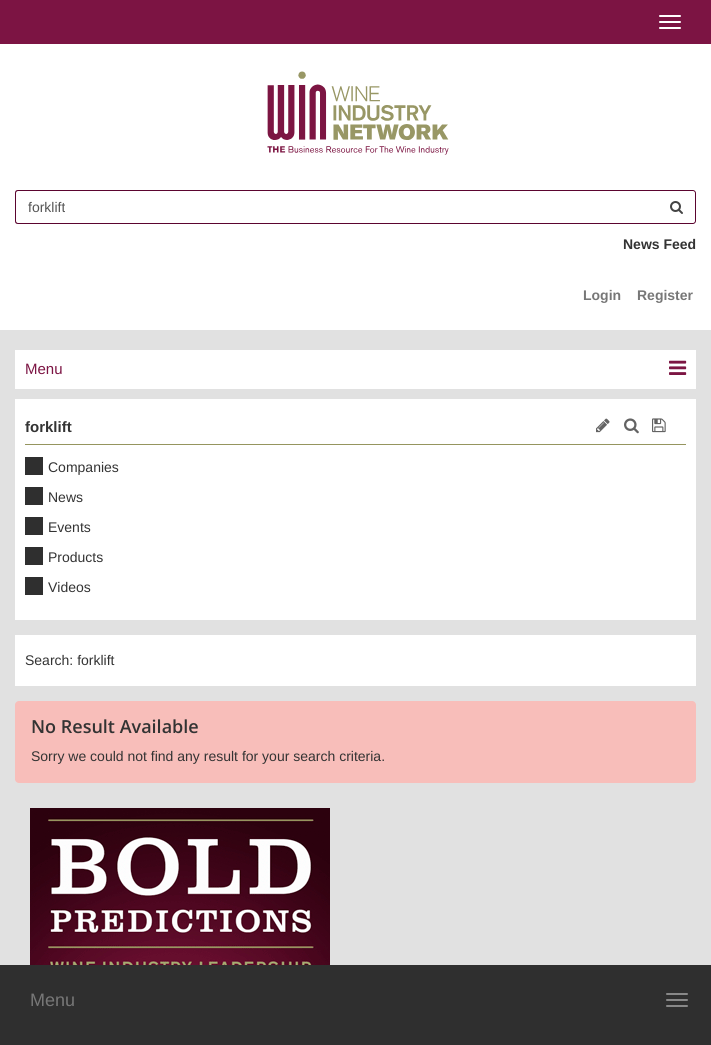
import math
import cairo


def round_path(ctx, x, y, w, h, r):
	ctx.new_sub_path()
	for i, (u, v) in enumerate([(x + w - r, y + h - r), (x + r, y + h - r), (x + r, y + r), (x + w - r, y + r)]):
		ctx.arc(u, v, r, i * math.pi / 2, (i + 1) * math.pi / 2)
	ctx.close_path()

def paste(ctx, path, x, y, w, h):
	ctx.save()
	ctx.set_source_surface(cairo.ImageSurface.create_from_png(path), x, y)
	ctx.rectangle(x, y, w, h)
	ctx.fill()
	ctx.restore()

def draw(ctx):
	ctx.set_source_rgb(0.882, 0.882, 0.882)
	ctx.paint()
	ctx.set_source_rgb(0.486, 0.082, 0.263)
	ctx.rectangle(0, 0, 711, 44)
	ctx.fill()
	ctx.set_source_rgb(1, 1, 1)
	round_path(ctx, 659, 15, 22, 2, 1)
	ctx.fill()
	round_path(ctx, 659, 21, 22, 2, 1)
	ctx.fill()
	round_path(ctx, 659, 27, 22, 2, 1)
	ctx.fill()
	ctx.rectangle(0, 44, 711, 286)
	ctx.fill()
	paste(ctx, 'media/1.png', 267, 71, 182, 84)
	ctx.set_source_rgb(0.357, 0.016, 0.184)
	ctx.set_fill_rule(cairo.FILL_RULE_EVEN_ODD)
	ctx.new_path()
	ctx.move_to(18, 190)
	ctx.line_to(659, 190)
	ctx.line_to(659, 224)
	ctx.line_to(18, 224)
	ctx.curve_to(16, 224, 15, 223, 15, 221)
	ctx.line_to(15, 193)
	ctx.curve_to(15, 191, 16, 190, 18, 190)
	ctx.close_path()
	ctx.move_to(18, 191)
	ctx.line_to(659, 191)
	ctx.line_to(659, 223)
	ctx.line_to(18, 223)
	ctx.curve_to(17, 223, 16, 222, 16, 221)
	ctx.line_to(16, 193)
	ctx.curve_to(16, 192, 17, 191, 18, 191)
	ctx.close_path()
	ctx.fill()
	ctx.select_font_face('Liberation Sans')
	ctx.set_font_size(14)
	ctx.set_source_rgb(0.333, 0.333, 0.333)
	ctx.move_to(28, 212)
	ctx.show_text('forklift')
	ctx.set_source_rgb(0.357, 0.016, 0.184)
	ctx.new_path()
	ctx.move_to(658, 190)
	ctx.line_to(693, 190)
	ctx.curve_to(694.5, 190, 696, 191.5, 696, 193)
	ctx.line_to(696, 221)
	ctx.curve_to(696, 222.5, 694.5, 224, 693, 224)
	ctx.line_to(658, 224)
	ctx.close_path()
	ctx.move_to(658, 191)
	ctx.line_to(693, 191)
	ctx.curve_to(694, 191, 695, 192, 695, 193)
	ctx.line_to(695, 221)
	ctx.curve_to(695, 222, 694, 223, 693, 223)
	ctx.line_to(658, 223)
	ctx.close_path()
	ctx.fill()
	paste(ctx, 'media/2.png', 670, 201, 13, 13)
	ctx.select_font_face('Liberation Sans', cairo.FONT_SLANT_NORMAL, cairo.FONT_WEIGHT_BOLD)
	ctx.set_source_rgb(0.2, 0.2, 0.2)
	ctx.move_to(623, 249)
	ctx.show_text('News Feed')
	ctx.set_source_rgb(0.467, 0.467, 0.467)
	ctx.move_to(583, 300)
	ctx.show_text('Login')
	ctx.move_to(637, 300)
	ctx.show_text('Register')
	ctx.set_source_rgb(1, 1, 1)
	ctx.rectangle(15, 350, 681, 39)
	ctx.fill()
	ctx.select_font_face('Liberation Sans')
	ctx.set_font_size(15)
	ctx.set_source_rgb(0.486, 0.082, 0.263)
	ctx.move_to(25, 374)
	ctx.show_text('Menu')
	paste(ctx, 'media/3.png', 669, 360, 18, 15)
	ctx.set_source_rgb(1, 1, 1)
	ctx.rectangle(15, 399, 681, 221)
	ctx.fill()
	ctx.set_source_rgb(0.584, 0.584, 0.369)
	ctx.rectangle(25, 444, 661, 1)
	ctx.fill()
	ctx.select_font_face('Liberation Sans', cairo.FONT_SLANT_NORMAL, cairo.FONT_WEIGHT_BOLD)
	ctx.set_source_rgb(0.2, 0.2, 0.2)
	ctx.move_to(25, 432)
	ctx.show_text('forklift')
	paste(ctx, 'media/4.png', 596, 418, 14, 15)
	paste(ctx, 'media/5.png', 624, 418, 15, 16)
	paste(ctx, 'media/6.png', 652, 418, 14, 15)
	ctx.set_source_rgb(0.184, 0.184, 0.184)
	ctx.rectangle(25, 457, 18, 18)
	ctx.fill()
	ctx.select_font_face('Liberation Sans')
	ctx.set_font_size(14)
	ctx.set_source_rgb(0.2, 0.2, 0.2)
	ctx.move_to(48, 472)
	ctx.show_text('Companies')
	ctx.set_source_rgb(0.184, 0.184, 0.184)
	ctx.rectangle(25, 487, 18, 18)
	ctx.fill()
	ctx.set_source_rgb(0.2, 0.2, 0.2)
	ctx.move_to(48, 502)
	ctx.show_text('News')
	ctx.set_source_rgb(0.184, 0.184, 0.184)
	ctx.rectangle(25, 517, 18, 18)
	ctx.fill()
	ctx.set_source_rgb(0.2, 0.2, 0.2)
	ctx.move_to(48, 532)
	ctx.show_text('Events')
	ctx.set_source_rgb(0.184, 0.184, 0.184)
	ctx.rectangle(25, 547, 18, 18)
	ctx.fill()
	ctx.set_source_rgb(0.2, 0.2, 0.2)
	ctx.move_to(48, 562)
	ctx.show_text('Products')
	ctx.set_source_rgb(0.184, 0.184, 0.184)
	ctx.rectangle(25, 577, 18, 18)
	ctx.fill()
	ctx.set_source_rgb(0.2, 0.2, 0.2)
	ctx.move_to(48, 592)
	ctx.show_text('Videos')
	ctx.set_source_rgb(1, 1, 1)
	ctx.rectangle(15, 635, 681, 51)
	ctx.fill()
	ctx.set_source_rgb(0.2, 0.2, 0.2)
	ctx.move_to(25, 665)
	ctx.show_text('Search: forklift')
	ctx.set_source_rgb(0.969, 0.745, 0.729)
	round_path(ctx, 15, 701, 681, 82, 4)
	ctx.fill()
	ctx.select_font_face('Open Sans SemiBold')
	ctx.set_font_size(18)
	ctx.set_source_rgb(0.2, 0.2, 0.2)
	ctx.move_to(31, 733)
	ctx.show_text('No Result Available')
	ctx.select_font_face('Liberation Sans')
	ctx.set_font_size(14)
	ctx.move_to(31, 761)
	ctx.show_text('Sorry we could not find any result for your search criteria.')
	paste(ctx, 'media/7.png', 30, 808, 300, 157)
	ctx.set_source_rgb(0.184, 0.184, 0.184)
	ctx.rectangle(0, 965, 711, 80)
	ctx.fill()
	ctx.set_font_size(18)
	ctx.set_source_rgb(0.467, 0.467, 0.467)
	ctx.move_to(30, 1006)
	ctx.show_text('Menu')
	ctx.set_source_rgb(0.533, 0.533, 0.533)
	round_path(ctx, 666, 993, 22, 2, 1)
	ctx.fill()
	round_path(ctx, 666, 999, 22, 2, 1)
	ctx.fill()
	round_path(ctx, 666, 1005, 22, 2, 1)
	ctx.fill()


surface = cairo.ImageSurface(cairo.FORMAT_RGB24, 711, 1045)
ctx = cairo.Context(surface)
options = cairo.FontOptions()
options.set_hint_metrics(cairo.HINT_METRICS_OFF)
options.set_hint_style(cairo.HINT_STYLE_NONE)
ctx.set_font_options(options)
ctx.set_miter_limit(4)
draw(ctx)
surface.write_to_png('image.png')
